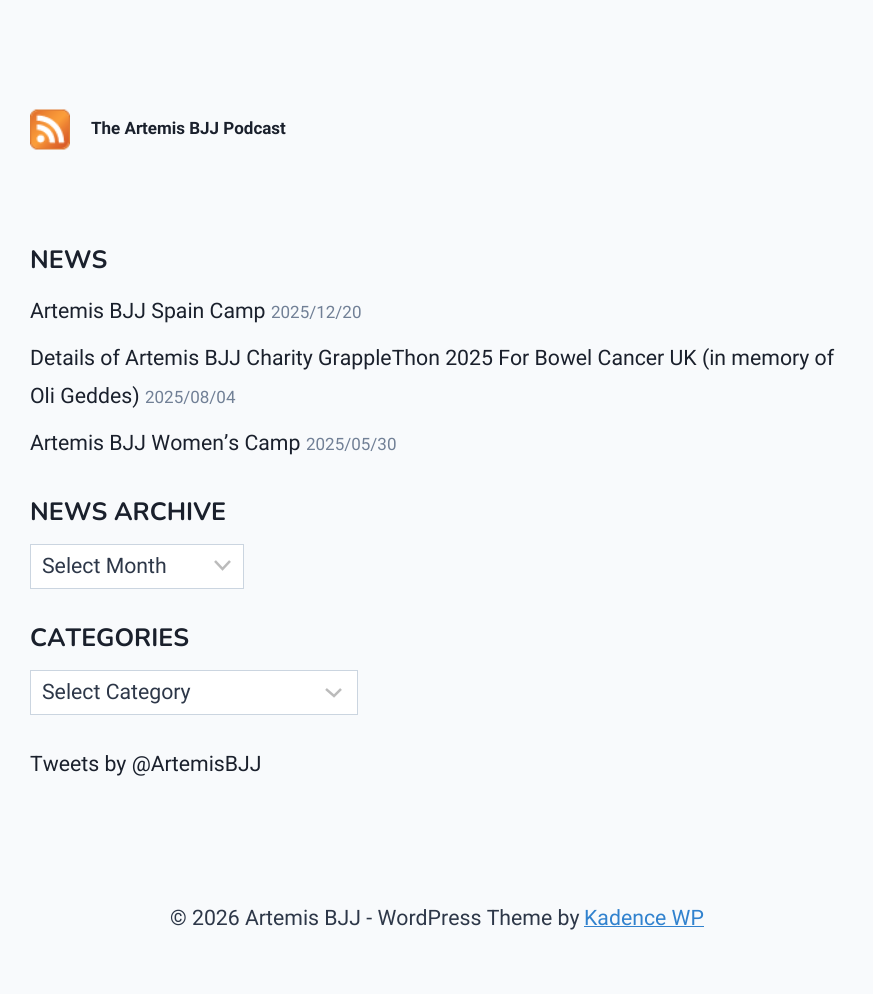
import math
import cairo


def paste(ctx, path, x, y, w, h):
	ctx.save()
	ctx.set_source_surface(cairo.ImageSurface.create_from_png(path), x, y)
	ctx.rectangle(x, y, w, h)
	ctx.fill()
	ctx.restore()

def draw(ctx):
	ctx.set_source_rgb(0.969, 0.98, 0.988)
	ctx.paint()
	paste(ctx, 'media/1.png', 30, 109, 40, 41)
	ctx.select_font_face('Roboto', cairo.FONT_SLANT_NORMAL, cairo.FONT_WEIGHT_BOLD)
	ctx.set_font_size(17)
	ctx.set_source_rgb(0.102, 0.125, 0.173)
	ctx.move_to(91, 134)
	ctx.show_text('The Artemis BJJ Podcast')
	ctx.select_font_face('Nunito ExtraLight')
	ctx.set_font_size(25)
	ctx.move_to(30, 268)
	ctx.show_text('NEWS')
	ctx.select_font_face('Roboto')
	ctx.set_font_size(21.25)
	ctx.move_to(30, 318)
	ctx.show_text('Artemis BJJ Spain Camp')
	ctx.set_font_size(17)
	ctx.set_source_rgb(0.443, 0.502, 0.588)
	ctx.move_to(271, 318)
	ctx.show_text('2025/12/20')
	ctx.set_font_size(21.25)
	ctx.set_source_rgb(0.102, 0.125, 0.173)
	ctx.move_to(30, 365)
	ctx.show_text('Details of Artemis BJJ Charity GrappleThon 2025 For Bowel Cancer UK (in memory of')
	ctx.move_to(30, 403)
	ctx.show_text('Oli Geddes)')
	ctx.set_font_size(17)
	ctx.set_source_rgb(0.443, 0.502, 0.588)
	ctx.move_to(145, 403)
	ctx.show_text('2025/08/04')
	ctx.set_font_size(21.25)
	ctx.set_source_rgb(0.102, 0.125, 0.173)
	ctx.move_to(30, 450)
	ctx.show_text('Artemis BJJ Women’s Camp')
	ctx.set_font_size(17)
	ctx.set_source_rgb(0.443, 0.502, 0.588)
	ctx.move_to(306, 450)
	ctx.show_text('2025/05/30')
	ctx.select_font_face('Nunito ExtraLight')
	ctx.set_font_size(25)
	ctx.set_source_rgb(0.102, 0.125, 0.173)
	ctx.move_to(30, 520)
	ctx.show_text('NEWS ARCHIVE')
	ctx.set_source_rgb(1, 1, 1)
	ctx.rectangle(31, 545, 212, 43)
	ctx.fill()
	ctx.new_path()
	ctx.move_to(215, 561)
	ctx.line_to(222.5, 569)
	ctx.line_to(230, 561)
	ctx.set_source_rgb(0.733, 0.733, 0.733)
	ctx.set_line_width(2.5)
	ctx.stroke()
	ctx.rectangle(30.5, 544.5, 213, 44)
	ctx.set_source_rgb(0.796, 0.835, 0.878)
	ctx.set_line_width(1)
	ctx.stroke()
	ctx.select_font_face('Roboto')
	ctx.set_font_size(21.25)
	ctx.set_source_rgb(0.176, 0.216, 0.282)
	ctx.move_to(42, 573)
	ctx.show_text('Select Month')
	ctx.select_font_face('Nunito ExtraLight')
	ctx.set_font_size(25)
	ctx.set_source_rgb(0.102, 0.125, 0.173)
	ctx.move_to(30, 646)
	ctx.show_text('CATEGORIES')
	ctx.set_source_rgb(1, 1, 1)
	ctx.rectangle(31, 671, 326, 43)
	ctx.fill()
	ctx.new_path()
	ctx.move_to(326, 689)
	ctx.line_to(334, 696)
	ctx.line_to(341, 689)
	ctx.set_source_rgb(0.733, 0.733, 0.733)
	ctx.set_line_width(2.5)
	ctx.stroke()
	ctx.rectangle(30.5, 670.5, 327, 44)
	ctx.set_source_rgb(0.796, 0.835, 0.878)
	ctx.set_line_width(1)
	ctx.stroke()
	ctx.select_font_face('Roboto')
	ctx.set_font_size(21.25)
	ctx.set_source_rgb(0.176, 0.216, 0.282)
	ctx.move_to(42, 699)
	ctx.show_text('Select Category')
	ctx.set_source_rgb(0.102, 0.125, 0.173)
	ctx.move_to(30, 771)
	ctx.show_text('Tweets by @ArtemisBJJ')
	ctx.set_source_rgb(0.176, 0.216, 0.282)
	ctx.move_to(170, 925)
	ctx.show_text('© 2026 Artemis BJJ - WordPress Theme by')
	ctx.set_source_rgb(0.192, 0.51, 0.808)
	ctx.move_to(584, 925)
	ctx.show_text('Kadence WP')
	ctx.rectangle(584, 926, 120, 1)
	ctx.fill()


surface = cairo.ImageSurface(cairo.FORMAT_RGB24, 873, 994)
ctx = cairo.Context(surface)
options = cairo.FontOptions()
options.set_hint_metrics(cairo.HINT_METRICS_OFF)
options.set_hint_style(cairo.HINT_STYLE_NONE)
ctx.set_font_options(options)
ctx.set_miter_limit(4)
draw(ctx)
surface.write_to_png('image.png')
